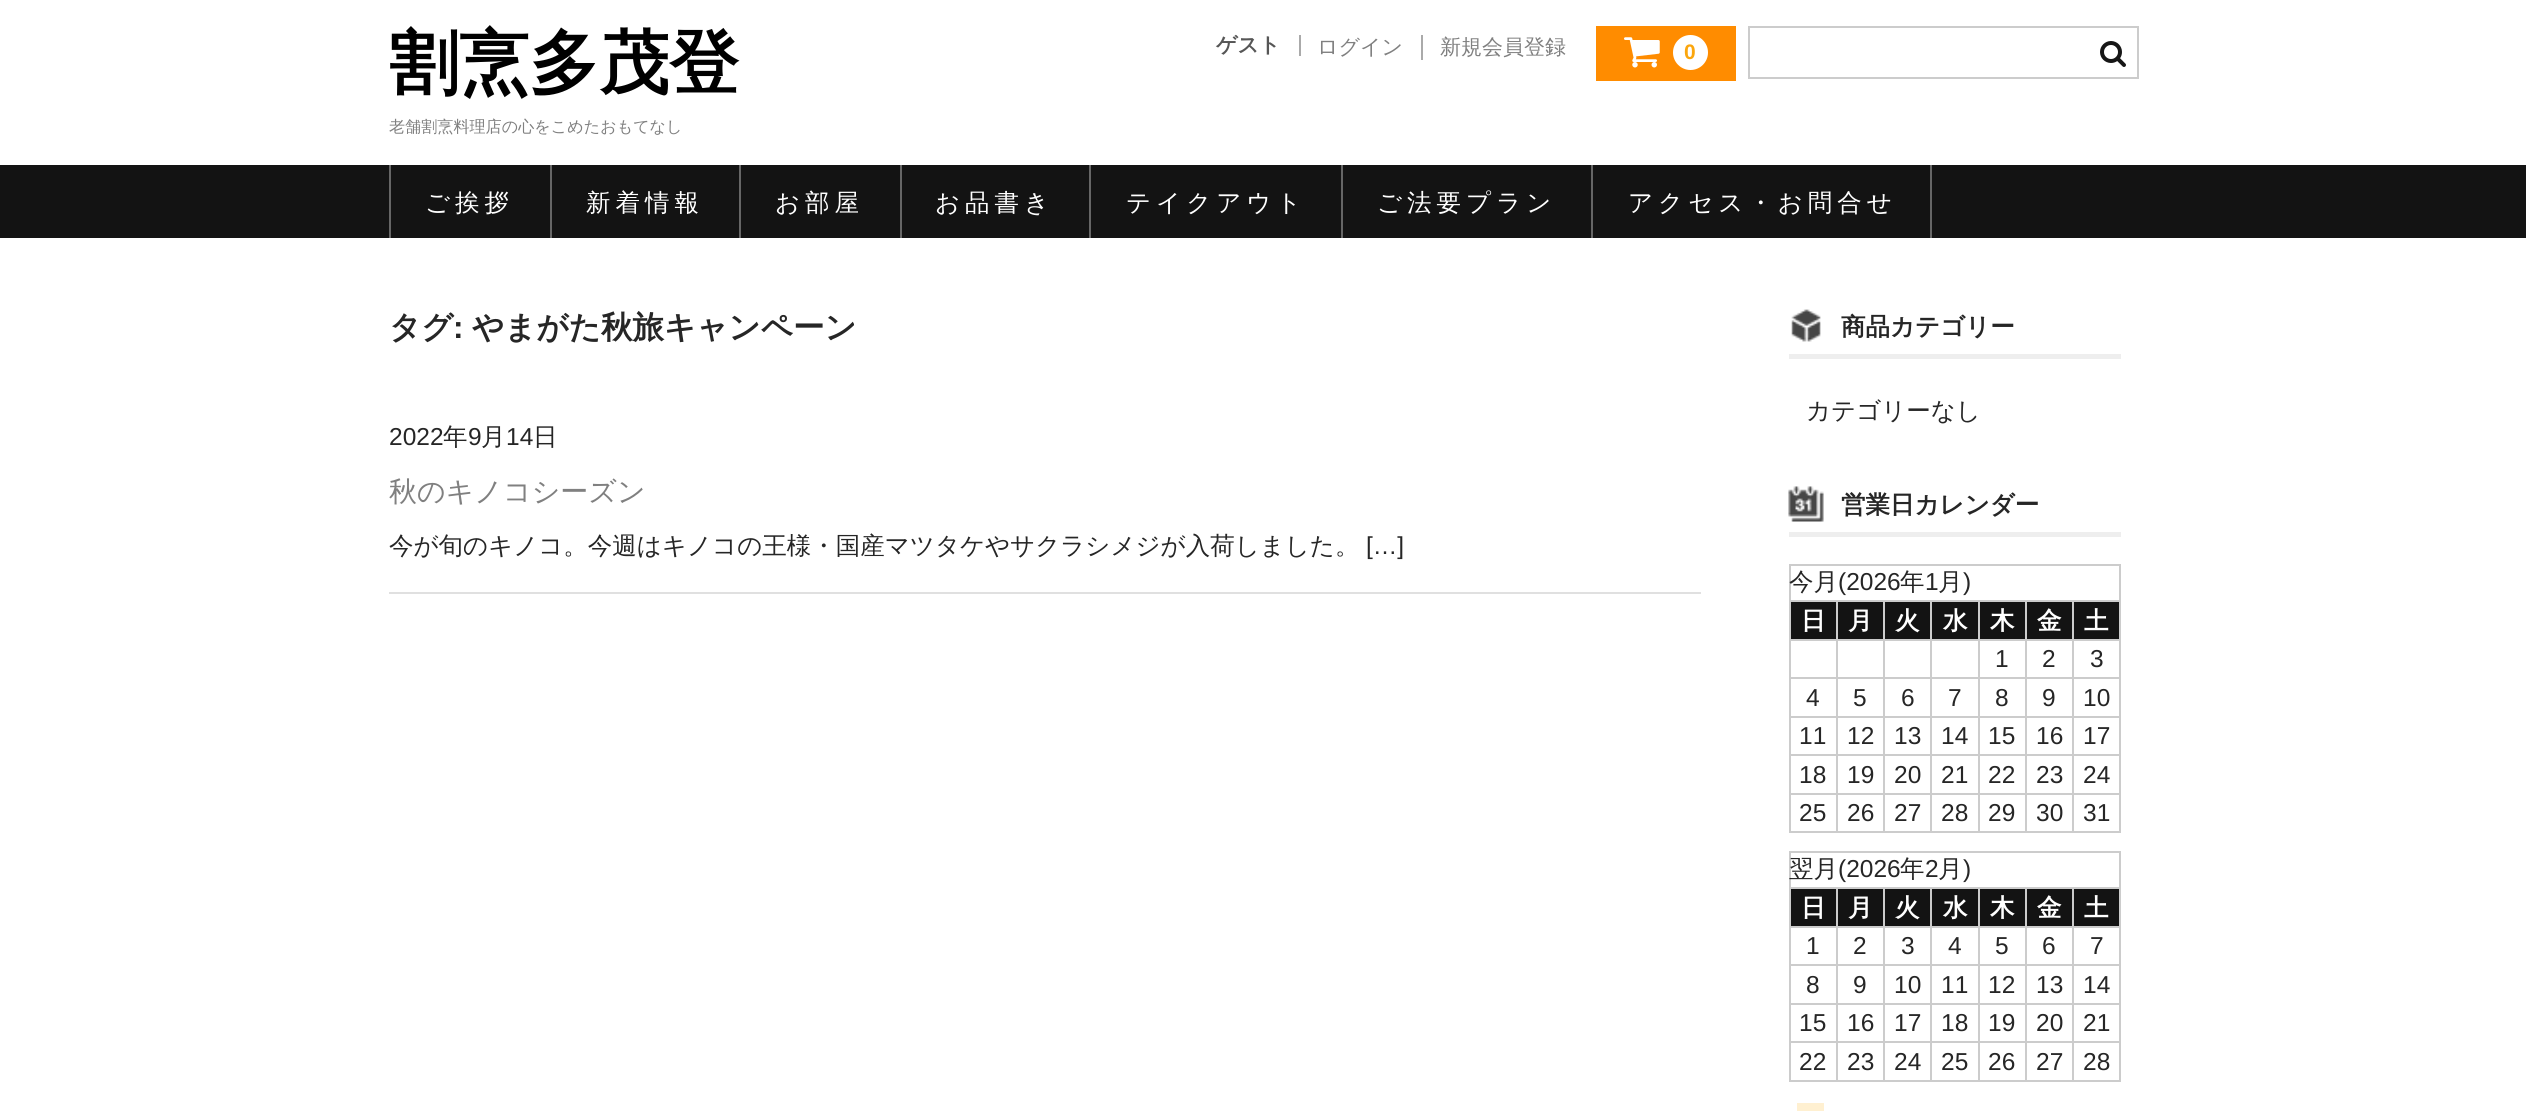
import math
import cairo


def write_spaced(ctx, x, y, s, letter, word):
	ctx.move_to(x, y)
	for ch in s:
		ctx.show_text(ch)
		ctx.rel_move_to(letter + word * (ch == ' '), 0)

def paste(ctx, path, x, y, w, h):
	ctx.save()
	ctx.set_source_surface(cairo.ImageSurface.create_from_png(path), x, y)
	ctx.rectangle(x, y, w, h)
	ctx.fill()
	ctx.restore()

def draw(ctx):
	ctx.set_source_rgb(1, 1, 1)
	ctx.paint()
	ctx.select_font_face('WenQuanYi Zen Hei', cairo.FONT_SLANT_NORMAL, cairo.FONT_WEIGHT_BOLD)
	ctx.set_font_size(70)
	ctx.set_source_rgb(0, 0, 0)
	ctx.move_to(389, 87)
	ctx.show_text('割烹多茂登')
	ctx.set_source_rgb(0.667, 0.667, 0.667)
	ctx.rectangle(1299, 35, 2, 21)
	ctx.fill()
	ctx.set_font_size(21)
	ctx.set_source_rgb(0.337, 0.337, 0.337)
	ctx.move_to(1216, 52)
	ctx.show_text('ゲスト')
	ctx.set_source_rgb(0.667, 0.667, 0.667)
	ctx.rectangle(1421, 35, 2, 25)
	ctx.fill()
	ctx.select_font_face('WenQuanYi Zen Hei Medium')
	ctx.set_source_rgb(0.502, 0.502, 0.502)
	ctx.move_to(1317, 54)
	ctx.show_text('ログイン')
	ctx.move_to(1440, 54)
	ctx.show_text('新規会員登録')
	ctx.set_source_rgb(1, 0.549, 0)
	ctx.rectangle(1596, 26, 140, 55)
	ctx.fill()
	paste(ctx, 'media/1.png', 1624, 37, 36, 31)
	ctx.set_source_rgb(1, 1, 1)
	ctx.arc(1690.5, 52.5, 17.5, 0, 2 * math.pi)
	ctx.fill()
	ctx.select_font_face('Liberation Sans', cairo.FONT_SLANT_NORMAL, cairo.FONT_WEIGHT_BOLD)
	ctx.set_source_rgb(0.984, 0.651, 0.051)
	write_spaced(ctx, 1684, 59, '0', 2, 0)
	ctx.rectangle(1749, 27, 389, 51)
	ctx.set_source_rgb(0.8, 0.8, 0.8)
	ctx.stroke()
	paste(ctx, 'media/2.png', 2100, 41, 26, 26)
	ctx.select_font_face('WenQuanYi Zen Hei Medium')
	ctx.set_font_size(16.1)
	ctx.set_source_rgb(0.502, 0.502, 0.502)
	ctx.move_to(389, 132)
	ctx.show_text('老舗割烹料理店の心をこめたおもてなし')
	ctx.set_source_rgb(0.075, 0.075, 0.075)
	ctx.rectangle(0, 165, 2526, 73)
	ctx.fill()
	ctx.set_source_rgb(0.4, 0.4, 0.4)
	ctx.rectangle(550, 165, 2, 73)
	ctx.rectangle(389, 165, 2, 73)
	ctx.fill()
	ctx.set_font_size(24.5)
	ctx.set_source_rgb(1, 1, 1)
	write_spaced(ctx, 425, 211, 'ご挨拶', 5, 0)
	ctx.set_source_rgb(0.4, 0.4, 0.4)
	ctx.rectangle(739, 165, 2, 73)
	ctx.fill()
	ctx.set_source_rgb(1, 1, 1)
	write_spaced(ctx, 586, 211, '新着情報', 5, 0)
	ctx.set_source_rgb(0.4, 0.4, 0.4)
	ctx.rectangle(900, 165, 2, 73)
	ctx.fill()
	ctx.set_source_rgb(1, 1, 1)
	write_spaced(ctx, 775, 211, 'お部屋', 5, 0)
	ctx.set_source_rgb(0.4, 0.4, 0.4)
	ctx.rectangle(1089, 165, 2, 73)
	ctx.fill()
	ctx.set_source_rgb(1, 1, 1)
	write_spaced(ctx, 935, 211, 'お品書き', 5, 0)
	ctx.set_source_rgb(0.4, 0.4, 0.4)
	ctx.rectangle(1341, 165, 2, 73)
	ctx.fill()
	ctx.set_source_rgb(1, 1, 1)
	write_spaced(ctx, 1126, 211, 'テイクアウト', 5, 0)
	ctx.set_source_rgb(0.4, 0.4, 0.4)
	ctx.rectangle(1591, 165, 2, 73)
	ctx.fill()
	ctx.set_source_rgb(1, 1, 1)
	write_spaced(ctx, 1377, 211, 'ご法要プラン', 5, 0)
	ctx.set_source_rgb(0.4, 0.4, 0.4)
	ctx.rectangle(1930, 165, 2, 73)
	ctx.fill()
	ctx.set_source_rgb(1, 1, 1)
	write_spaced(ctx, 1628, 211, 'アクセス・お問合せ', 5, 0)
	ctx.select_font_face('WenQuanYi Zen Hei', cairo.FONT_SLANT_NORMAL, cairo.FONT_WEIGHT_BOLD)
	ctx.set_font_size(31.5)
	ctx.set_source_rgb(0.149, 0.149, 0.149)
	ctx.move_to(389, 338)
	ctx.show_text('タグ')
	ctx.select_font_face('Liberation Sans', cairo.FONT_SLANT_NORMAL, cairo.FONT_WEIGHT_BOLD)
	ctx.move_to(453, 338)
	ctx.show_text(':')
	ctx.select_font_face('WenQuanYi Zen Hei', cairo.FONT_SLANT_NORMAL, cairo.FONT_WEIGHT_BOLD)
	ctx.move_to(472, 338)
	ctx.show_text('やまがた秋旅キャンペーン')
	ctx.set_source_rgb(0.878, 0.878, 0.878)
	ctx.rectangle(389, 592, 1312, 2)
	ctx.fill()
	ctx.select_font_face('Liberation Sans')
	ctx.set_font_size(24.5)
	ctx.set_source_rgb(0.149, 0.149, 0.149)
	ctx.move_to(389, 445)
	ctx.show_text('2022')
	ctx.select_font_face('WenQuanYi Zen Hei Medium')
	ctx.move_to(443, 445)
	ctx.show_text('年')
	ctx.select_font_face('Liberation Sans')
	ctx.move_to(468, 445)
	ctx.show_text('9')
	ctx.select_font_face('WenQuanYi Zen Hei Medium')
	ctx.move_to(481, 445)
	ctx.show_text('月')
	ctx.select_font_face('Liberation Sans')
	ctx.move_to(506, 445)
	ctx.show_text('14')
	ctx.select_font_face('WenQuanYi Zen Hei Medium')
	ctx.move_to(533, 445)
	ctx.show_text('日')
	ctx.set_font_size(28)
	ctx.set_source_rgb(0.502, 0.502, 0.502)
	ctx.move_to(389, 501)
	ctx.show_text('秋のキノコシーズン')
	ctx.set_font_size(24.5)
	ctx.set_source_rgb(0.149, 0.149, 0.149)
	ctx.move_to(389, 554)
	ctx.show_text('今が旬のキノコ。今週はキノコの王様・国産マツタケやサクラシメジが入荷しました。')
	ctx.select_font_face('Liberation Sans')
	ctx.move_to(1366, 554)
	ctx.show_text('[…]')
	ctx.set_source_rgb(0.933, 0.933, 0.933)
	ctx.rectangle(1789, 354, 332, 5)
	ctx.fill()
	paste(ctx, 'media/3.png', 1791, 309, 30, 33)
	ctx.select_font_face('WenQuanYi Zen Hei', cairo.FONT_SLANT_NORMAL, cairo.FONT_WEIGHT_BOLD)
	ctx.set_source_rgb(0.149, 0.149, 0.149)
	ctx.move_to(1841, 335)
	ctx.show_text('商品カテゴリー')
	ctx.select_font_face('WenQuanYi Zen Hei Medium')
	ctx.move_to(1806, 419)
	ctx.show_text('カテゴリーなし')
	ctx.set_source_rgb(0.933, 0.933, 0.933)
	ctx.rectangle(1789, 532, 332, 5)
	ctx.fill()
	paste(ctx, 'media/4.png', 1788, 486, 36, 36)
	ctx.select_font_face('WenQuanYi Zen Hei', cairo.FONT_SLANT_NORMAL, cairo.FONT_WEIGHT_BOLD)
	ctx.set_source_rgb(0.149, 0.149, 0.149)
	ctx.move_to(1841, 513)
	ctx.show_text('営業日カレンダー')
	ctx.set_source_rgb(0.8, 0.8, 0.8)
	ctx.rectangle(1789, 564, 332, 2)
	ctx.rectangle(2119, 564, 2, 269)
	ctx.rectangle(1789, 831, 332, 2)
	ctx.rectangle(1789, 564, 2, 269)
	ctx.fill()
	ctx.select_font_face('WenQuanYi Zen Hei Medium')
	ctx.set_source_rgb(0.149, 0.149, 0.149)
	ctx.move_to(1789, 590)
	ctx.show_text('今月')
	ctx.select_font_face('Liberation Sans')
	ctx.move_to(1838, 590)
	ctx.show_text('(2026')
	ctx.select_font_face('WenQuanYi Zen Hei Medium')
	ctx.move_to(1900, 590)
	ctx.show_text('年')
	ctx.select_font_face('Liberation Sans')
	ctx.move_to(1925, 590)
	ctx.show_text('1')
	ctx.select_font_face('WenQuanYi Zen Hei Medium')
	ctx.move_to(1938, 590)
	ctx.show_text('月')
	ctx.select_font_face('Liberation Sans')
	ctx.move_to(1963, 590)
	ctx.show_text(')')
	ctx.set_source_rgb(0.075, 0.075, 0.075)
	ctx.rectangle(1791, 602, 45, 37)
	ctx.fill()
	ctx.set_source_rgb(0.8, 0.8, 0.8)
	ctx.rectangle(2072, 600, 49, 2)
	ctx.rectangle(2072, 639, 49, 2)
	ctx.rectangle(2072, 677, 49, 2)
	ctx.rectangle(2072, 716, 49, 2)
	ctx.rectangle(2072, 754, 49, 2)
	ctx.rectangle(2072, 793, 49, 2)
	ctx.rectangle(2072, 793, 2, 40)
	ctx.rectangle(2025, 793, 49, 2)
	ctx.rectangle(2072, 754, 2, 41)
	ctx.rectangle(2025, 754, 49, 2)
	ctx.rectangle(2072, 716, 2, 40)
	ctx.rectangle(2025, 716, 49, 2)
	ctx.rectangle(2072, 677, 2, 41)
	ctx.rectangle(2025, 677, 49, 2)
	ctx.rectangle(2072, 639, 2, 40)
	ctx.rectangle(2025, 639, 49, 2)
	ctx.rectangle(2072, 600, 2, 41)
	ctx.rectangle(2025, 600, 49, 2)
	ctx.rectangle(2025, 793, 2, 40)
	ctx.rectangle(1978, 793, 49, 2)
	ctx.rectangle(2025, 754, 2, 41)
	ctx.rectangle(1978, 754, 49, 2)
	ctx.rectangle(2025, 716, 2, 40)
	ctx.rectangle(1978, 716, 49, 2)
	ctx.rectangle(2025, 677, 2, 41)
	ctx.rectangle(1978, 677, 49, 2)
	ctx.rectangle(2025, 639, 2, 40)
	ctx.rectangle(1978, 639, 49, 2)
	ctx.rectangle(2025, 600, 2, 41)
	ctx.rectangle(1978, 600, 49, 2)
	ctx.rectangle(1978, 793, 2, 40)
	ctx.rectangle(1930, 793, 49, 2)
	ctx.rectangle(1978, 754, 2, 41)
	ctx.rectangle(1930, 754, 49, 2)
	ctx.rectangle(1978, 716, 2, 40)
	ctx.rectangle(1930, 716, 49, 2)
	ctx.rectangle(1978, 677, 2, 41)
	ctx.rectangle(1930, 677, 49, 2)
	ctx.rectangle(1978, 639, 2, 40)
	ctx.rectangle(1930, 639, 49, 2)
	ctx.rectangle(1978, 600, 2, 41)
	ctx.rectangle(1930, 600, 49, 2)
	ctx.rectangle(1930, 793, 2, 40)
	ctx.rectangle(1883, 793, 49, 2)
	ctx.rectangle(1930, 754, 2, 41)
	ctx.rectangle(1883, 754, 49, 2)
	ctx.rectangle(1930, 716, 2, 40)
	ctx.rectangle(1883, 716, 49, 2)
	ctx.rectangle(1930, 677, 2, 41)
	ctx.rectangle(1883, 677, 49, 2)
	ctx.rectangle(1930, 639, 2, 40)
	ctx.rectangle(1883, 639, 49, 2)
	ctx.rectangle(1930, 600, 2, 41)
	ctx.rectangle(1883, 600, 49, 2)
	ctx.rectangle(1883, 793, 2, 40)
	ctx.rectangle(1836, 793, 49, 2)
	ctx.rectangle(1883, 754, 2, 41)
	ctx.rectangle(1836, 754, 49, 2)
	ctx.rectangle(1883, 716, 2, 40)
	ctx.rectangle(1836, 716, 49, 2)
	ctx.rectangle(1883, 677, 2, 41)
	ctx.rectangle(1836, 677, 49, 2)
	ctx.rectangle(1883, 639, 2, 40)
	ctx.rectangle(1836, 639, 49, 2)
	ctx.rectangle(1883, 600, 2, 41)
	ctx.rectangle(1836, 600, 49, 2)
	ctx.rectangle(1836, 793, 2, 40)
	ctx.rectangle(1789, 793, 49, 2)
	ctx.rectangle(1836, 754, 2, 41)
	ctx.rectangle(1789, 754, 49, 2)
	ctx.rectangle(1836, 716, 2, 40)
	ctx.rectangle(1789, 716, 49, 2)
	ctx.rectangle(1836, 677, 2, 41)
	ctx.rectangle(1789, 677, 49, 2)
	ctx.rectangle(1836, 639, 2, 40)
	ctx.rectangle(1789, 639, 49, 2)
	ctx.rectangle(1836, 600, 2, 41)
	ctx.rectangle(1789, 600, 49, 2)
	ctx.fill()
	ctx.select_font_face('WenQuanYi Zen Hei', cairo.FONT_SLANT_NORMAL, cairo.FONT_WEIGHT_BOLD)
	ctx.set_source_rgb(1, 1, 1)
	ctx.move_to(1801, 629)
	ctx.show_text('日')
	ctx.set_source_rgb(0.075, 0.075, 0.075)
	ctx.rectangle(1838, 602, 45, 37)
	ctx.fill()
	ctx.set_source_rgb(1, 1, 1)
	ctx.move_to(1848, 629)
	ctx.show_text('月')
	ctx.set_source_rgb(0.075, 0.075, 0.075)
	ctx.rectangle(1885, 602, 45, 37)
	ctx.fill()
	ctx.set_source_rgb(1, 1, 1)
	ctx.move_to(1895, 629)
	ctx.show_text('火')
	ctx.set_source_rgb(0.075, 0.075, 0.075)
	ctx.rectangle(1932, 602, 46, 37)
	ctx.fill()
	ctx.set_source_rgb(1, 1, 1)
	ctx.move_to(1943, 629)
	ctx.show_text('水')
	ctx.set_source_rgb(0.075, 0.075, 0.075)
	ctx.rectangle(1980, 602, 45, 37)
	ctx.fill()
	ctx.set_source_rgb(1, 1, 1)
	ctx.move_to(1990, 629)
	ctx.show_text('木')
	ctx.set_source_rgb(0.075, 0.075, 0.075)
	ctx.rectangle(2027, 602, 45, 37)
	ctx.fill()
	ctx.set_source_rgb(1, 1, 1)
	ctx.move_to(2037, 629)
	ctx.show_text('金')
	ctx.set_source_rgb(0.075, 0.075, 0.075)
	ctx.rectangle(2074, 602, 45, 37)
	ctx.fill()
	ctx.set_source_rgb(1, 1, 1)
	ctx.move_to(2084, 629)
	ctx.show_text('土')
	ctx.select_font_face('Liberation Sans')
	ctx.set_source_rgb(0.149, 0.149, 0.149)
	for x, y, s in [
		(1995, 667, '1'),
		(2042, 667, '2'),
		(2090, 667, '3'),
		(1806, 706, '4'),
		(1853, 706, '5'),
		(1901, 706, '6'),
		(1948, 706, '7'),
		(1995, 706, '8'),
		(2042, 706, '9'),
		(2083, 706, '10'),
		(1799, 744, '11'),
		(1847, 744, '12'),
		(1894, 744, '13'),
		(1941, 744, '14'),
		(1988, 744, '15'),
		(2036, 744, '16'),
		(2083, 744, '17'),
		(1799, 783, '18'),
		(1847, 783, '19'),
		(1894, 783, '20'),
		(1941, 783, '21'),
		(1988, 783, '22'),
		(2036, 783, '23'),
		(2083, 783, '24'),
		(1799, 821, '25'),
		(1847, 821, '26'),
		(1894, 821, '27'),
		(1941, 821, '28'),
		(1988, 821, '29'),
		(2036, 821, '30'),
		(2083, 821, '31'),
	]:
		ctx.move_to(x, y)
		ctx.show_text(s)
	ctx.set_source_rgb(0.8, 0.8, 0.8)
	ctx.rectangle(1789, 851, 332, 2)
	ctx.rectangle(2119, 851, 2, 231)
	ctx.rectangle(1789, 1080, 332, 2)
	ctx.rectangle(1789, 851, 2, 231)
	ctx.fill()
	ctx.select_font_face('WenQuanYi Zen Hei Medium')
	ctx.set_source_rgb(0.149, 0.149, 0.149)
	ctx.move_to(1789, 877)
	ctx.show_text('翌月')
	ctx.select_font_face('Liberation Sans')
	ctx.move_to(1838, 877)
	ctx.show_text('(2026')
	ctx.select_font_face('WenQuanYi Zen Hei Medium')
	ctx.move_to(1900, 877)
	ctx.show_text('年')
	ctx.select_font_face('Liberation Sans')
	ctx.move_to(1925, 877)
	ctx.show_text('2')
	ctx.select_font_face('WenQuanYi Zen Hei Medium')
	ctx.move_to(1938, 877)
	ctx.show_text('月')
	ctx.select_font_face('Liberation Sans')
	ctx.move_to(1963, 877)
	ctx.show_text(')')
	ctx.set_source_rgb(0.075, 0.075, 0.075)
	ctx.rectangle(1791, 889, 45, 37)
	ctx.fill()
	ctx.set_source_rgb(0.8, 0.8, 0.8)
	ctx.rectangle(2072, 887, 49, 2)
	ctx.rectangle(2072, 926, 49, 2)
	ctx.rectangle(2072, 964, 49, 2)
	ctx.rectangle(2072, 1003, 49, 2)
	ctx.rectangle(2072, 1041, 49, 2)
	ctx.rectangle(2072, 1041, 2, 41)
	ctx.rectangle(2025, 1041, 49, 2)
	ctx.rectangle(2072, 1003, 2, 40)
	ctx.rectangle(2025, 1003, 49, 2)
	ctx.rectangle(2072, 964, 2, 41)
	ctx.rectangle(2025, 964, 49, 2)
	ctx.rectangle(2072, 926, 2, 40)
	ctx.rectangle(2025, 926, 49, 2)
	ctx.rectangle(2072, 887, 2, 41)
	ctx.rectangle(2025, 887, 49, 2)
	ctx.rectangle(2025, 1041, 2, 41)
	ctx.rectangle(1978, 1041, 49, 2)
	ctx.rectangle(2025, 1003, 2, 40)
	ctx.rectangle(1978, 1003, 49, 2)
	ctx.rectangle(2025, 964, 2, 41)
	ctx.rectangle(1978, 964, 49, 2)
	ctx.rectangle(2025, 926, 2, 40)
	ctx.rectangle(1978, 926, 49, 2)
	ctx.rectangle(2025, 887, 2, 41)
	ctx.rectangle(1978, 887, 49, 2)
	ctx.rectangle(1978, 1041, 2, 41)
	ctx.rectangle(1930, 1041, 49, 2)
	ctx.rectangle(1978, 1003, 2, 40)
	ctx.rectangle(1930, 1003, 49, 2)
	ctx.rectangle(1978, 964, 2, 41)
	ctx.rectangle(1930, 964, 49, 2)
	ctx.rectangle(1978, 926, 2, 40)
	ctx.rectangle(1930, 926, 49, 2)
	ctx.rectangle(1978, 887, 2, 41)
	ctx.rectangle(1930, 887, 49, 2)
	ctx.rectangle(1930, 1041, 2, 41)
	ctx.rectangle(1883, 1041, 49, 2)
	ctx.rectangle(1930, 1003, 2, 40)
	ctx.rectangle(1883, 1003, 49, 2)
	ctx.rectangle(1930, 964, 2, 41)
	ctx.rectangle(1883, 964, 49, 2)
	ctx.rectangle(1930, 926, 2, 40)
	ctx.rectangle(1883, 926, 49, 2)
	ctx.rectangle(1930, 887, 2, 41)
	ctx.rectangle(1883, 887, 49, 2)
	ctx.rectangle(1883, 1041, 2, 41)
	ctx.rectangle(1836, 1041, 49, 2)
	ctx.rectangle(1883, 1003, 2, 40)
	ctx.rectangle(1836, 1003, 49, 2)
	ctx.rectangle(1883, 964, 2, 41)
	ctx.rectangle(1836, 964, 49, 2)
	ctx.rectangle(1883, 926, 2, 40)
	ctx.rectangle(1836, 926, 49, 2)
	ctx.rectangle(1883, 887, 2, 41)
	ctx.rectangle(1836, 887, 49, 2)
	ctx.rectangle(1836, 1041, 2, 41)
	ctx.rectangle(1789, 1041, 49, 2)
	ctx.rectangle(1836, 1003, 2, 40)
	ctx.rectangle(1789, 1003, 49, 2)
	ctx.rectangle(1836, 964, 2, 41)
	ctx.rectangle(1789, 964, 49, 2)
	ctx.rectangle(1836, 926, 2, 40)
	ctx.rectangle(1789, 926, 49, 2)
	ctx.rectangle(1836, 887, 2, 41)
	ctx.rectangle(1789, 887, 49, 2)
	ctx.fill()
	ctx.select_font_face('WenQuanYi Zen Hei', cairo.FONT_SLANT_NORMAL, cairo.FONT_WEIGHT_BOLD)
	ctx.set_source_rgb(1, 1, 1)
	ctx.move_to(1801, 916)
	ctx.show_text('日')
	ctx.set_source_rgb(0.075, 0.075, 0.075)
	ctx.rectangle(1838, 889, 45, 37)
	ctx.fill()
	ctx.set_source_rgb(1, 1, 1)
	ctx.move_to(1848, 916)
	ctx.show_text('月')
	ctx.set_source_rgb(0.075, 0.075, 0.075)
	ctx.rectangle(1885, 889, 45, 37)
	ctx.fill()
	ctx.set_source_rgb(1, 1, 1)
	ctx.move_to(1895, 916)
	ctx.show_text('火')
	ctx.set_source_rgb(0.075, 0.075, 0.075)
	ctx.rectangle(1932, 889, 46, 37)
	ctx.fill()
	ctx.set_source_rgb(1, 1, 1)
	ctx.move_to(1943, 916)
	ctx.show_text('水')
	ctx.set_source_rgb(0.075, 0.075, 0.075)
	ctx.rectangle(1980, 889, 45, 37)
	ctx.fill()
	ctx.set_source_rgb(1, 1, 1)
	ctx.move_to(1990, 916)
	ctx.show_text('木')
	ctx.set_source_rgb(0.075, 0.075, 0.075)
	ctx.rectangle(2027, 889, 45, 37)
	ctx.fill()
	ctx.set_source_rgb(1, 1, 1)
	ctx.move_to(2037, 916)
	ctx.show_text('金')
	ctx.set_source_rgb(0.075, 0.075, 0.075)
	ctx.rectangle(2074, 889, 45, 37)
	ctx.fill()
	ctx.set_source_rgb(1, 1, 1)
	ctx.move_to(2084, 916)
	ctx.show_text('土')
	ctx.select_font_face('Liberation Sans')
	ctx.set_source_rgb(0.149, 0.149, 0.149)
	for x, y, s in [
		(1806, 954, '1'),
		(1853, 954, '2'),
		(1901, 954, '3'),
		(1948, 954, '4'),
		(1995, 954, '5'),
		(2042, 954, '6'),
		(2090, 954, '7'),
		(1806, 993, '8'),
		(1853, 993, '9'),
		(1894, 993, '10'),
		(1941, 993, '11'),
		(1988, 993, '12'),
		(2036, 993, '13'),
		(2083, 993, '14'),
		(1799, 1031, '15'),
		(1847, 1031, '16'),
		(1894, 1031, '17'),
		(1941, 1031, '18'),
		(1988, 1031, '19'),
		(2036, 1031, '20'),
		(2083, 1031, '21'),
		(1799, 1070, '22'),
		(1847, 1070, '23'),
		(1894, 1070, '24'),
		(1941, 1070, '25'),
		(1988, 1070, '26'),
		(2036, 1070, '27'),
		(2083, 1070, '28'),
	]:
		ctx.move_to(x, y)
		ctx.show_text(s)
	ctx.set_source_rgb(1, 0.941, 0.82)
	ctx.rectangle(1797, 1103, 27, 8)
	ctx.fill()


surface = cairo.ImageSurface(cairo.FORMAT_RGB24, 2526, 1111)
ctx = cairo.Context(surface)
options = cairo.FontOptions()
options.set_hint_metrics(cairo.HINT_METRICS_OFF)
options.set_hint_style(cairo.HINT_STYLE_NONE)
ctx.set_font_options(options)
ctx.set_miter_limit(4)
draw(ctx)
surface.write_to_png('image.png')
